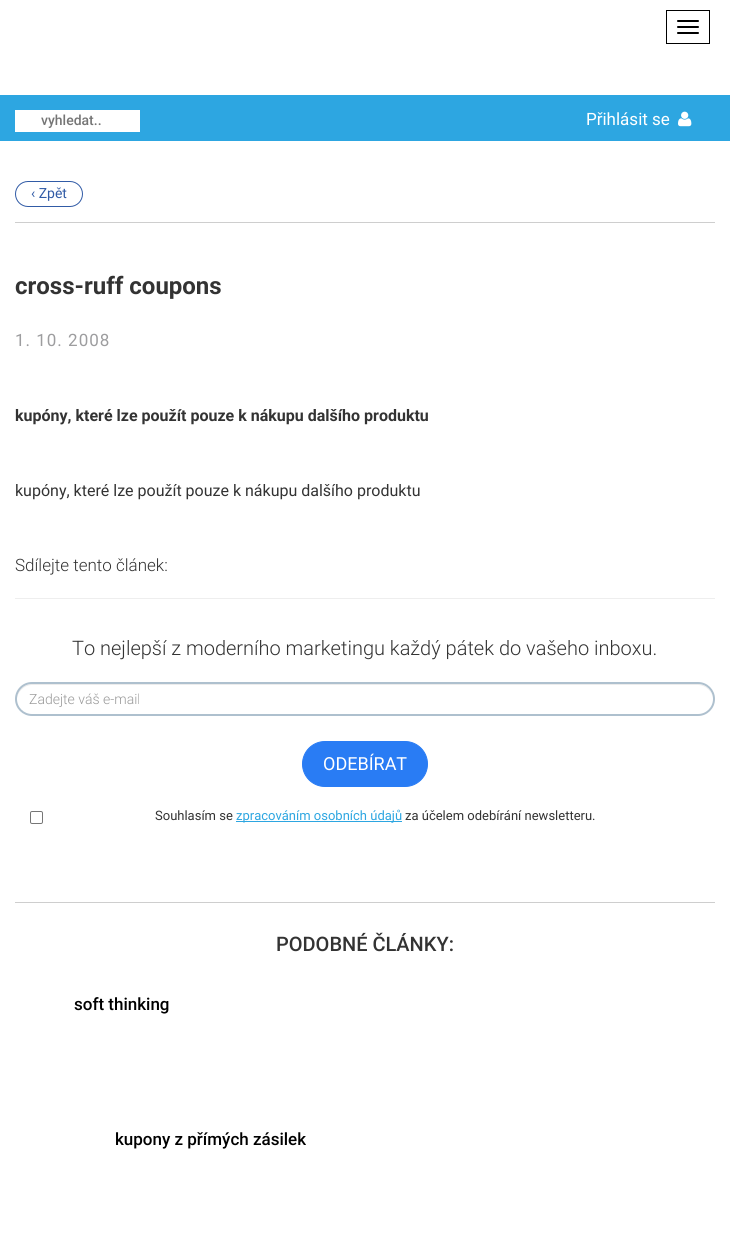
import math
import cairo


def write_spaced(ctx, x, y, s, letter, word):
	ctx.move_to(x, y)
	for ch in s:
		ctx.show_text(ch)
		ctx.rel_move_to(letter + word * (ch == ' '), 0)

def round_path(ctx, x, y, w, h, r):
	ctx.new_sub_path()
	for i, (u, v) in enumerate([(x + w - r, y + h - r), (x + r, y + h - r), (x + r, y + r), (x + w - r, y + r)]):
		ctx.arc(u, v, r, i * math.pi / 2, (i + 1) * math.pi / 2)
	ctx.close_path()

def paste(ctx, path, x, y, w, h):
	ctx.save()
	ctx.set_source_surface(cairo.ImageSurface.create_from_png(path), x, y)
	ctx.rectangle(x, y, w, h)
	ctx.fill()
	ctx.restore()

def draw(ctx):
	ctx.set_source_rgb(1, 1, 1)
	ctx.paint()
	ctx.rectangle(666.5, 10.5, 43, 33)
	ctx.set_source_rgb(0, 0, 0)
	ctx.set_line_width(1)
	ctx.stroke()
	round_path(ctx, 677, 20, 22, 2, 1)
	ctx.fill()
	round_path(ctx, 677, 26, 22, 2, 1)
	ctx.fill()
	round_path(ctx, 677, 32, 22, 2, 1)
	ctx.fill()
	ctx.set_source_rgb(0.176, 0.651, 0.882)
	ctx.rectangle(0, 95, 730, 46)
	ctx.fill()
	ctx.set_source_rgb(1, 1, 1)
	ctx.rectangle(15, 110, 125, 22)
	ctx.fill()
	ctx.select_font_face('Roboto Medium')
	ctx.set_font_size(14)
	ctx.set_source_rgb(0.459, 0.459, 0.459)
	ctx.move_to(41, 125)
	ctx.show_text('vyhledat..')
	ctx.select_font_face('Roboto')
	ctx.set_font_size(17)
	ctx.set_source_rgb(1, 1, 1)
	ctx.move_to(586, 125)
	ctx.show_text('Přihlásit se')
	paste(ctx, 'media/1.png', 678, 111, 14, 16)
	ctx.set_source_rgb(0.808, 0.808, 0.808)
	ctx.rectangle(15, 222, 700, 1)
	ctx.fill()
	round_path(ctx, 15.5, 181.5, 67, 25, 12.5)
	ctx.set_source_rgb(0.192, 0.357, 0.651)
	ctx.stroke()
	ctx.set_font_size(14)
	ctx.move_to(31, 198)
	ctx.show_text('‹ Zpět')
	ctx.select_font_face('Roboto', cairo.FONT_SLANT_NORMAL, cairo.FONT_WEIGHT_BOLD)
	ctx.set_font_size(24)
	ctx.set_source_rgb(0.2, 0.2, 0.2)
	ctx.move_to(15, 294)
	ctx.show_text('cross-ruff coupons')
	ctx.select_font_face('Roboto')
	ctx.set_font_size(17)
	ctx.set_source_rgb(0.616, 0.616, 0.624)
	write_spaced(ctx, 15, 346, '1. 10. 2008', 1, 0)
	ctx.select_font_face('Roboto', cairo.FONT_SLANT_NORMAL, cairo.FONT_WEIGHT_BOLD)
	ctx.set_font_size(16)
	ctx.set_source_rgb(0.2, 0.2, 0.2)
	ctx.move_to(15, 421)
	ctx.show_text('kupóny, které lze použít pouze k nákupu dalšího produktu')
	ctx.select_font_face('Roboto')
	ctx.move_to(15, 496)
	ctx.show_text('kupóny, které lze použít pouze k nákupu dalšího produktu')
	ctx.select_font_face('Roboto Light')
	ctx.set_font_size(17)
	ctx.move_to(15, 571)
	ctx.show_text('Sdílejte tento článek:')
	ctx.set_source_rgb(0.933, 0.933, 0.933)
	ctx.rectangle(15, 598, 700, 1)
	ctx.fill()
	ctx.set_font_size(20)
	ctx.set_source_rgb(0.2, 0.2, 0.2)
	ctx.move_to(72, 655)
	ctx.show_text('To nejlepší z moderního marketingu každý pátek do vašeho inboxu.')
	ctx.set_source_rgb(0.925, 0.925, 0.925)
	ctx.new_path()
	ctx.move_to(32, 685)
	ctx.line_to(698, 685)
	ctx.curve_to(706, 685, 713, 692, 713, 700)
	ctx.curve_to(713, 691, 706, 684, 698, 684)
	ctx.line_to(32, 684)
	ctx.curve_to(28, 684, 24, 686, 21, 688)
	ctx.curve_to(18, 691, 17, 695, 17, 700)
	ctx.curve_to(17, 692, 24, 685, 32, 685)
	ctx.close_path()
	ctx.fill()
	round_path(ctx, 16, 683, 698, 32, 16)
	ctx.set_source_rgb(0.682, 0.753, 0.808)
	ctx.set_line_width(2)
	ctx.stroke()
	ctx.set_font_size(14)
	ctx.set_source_rgb(0.6, 0.6, 0.6)
	ctx.move_to(29, 704)
	ctx.show_text('Zadejte váš e-mail')
	ctx.set_source_rgb(0.161, 0.486, 0.957)
	round_path(ctx, 302.5, 741.5, 125, 45, 22.5)
	ctx.fill_preserve()
	ctx.set_line_width(1)
	ctx.stroke()
	ctx.select_font_face('Roboto')
	ctx.set_font_size(18)
	ctx.set_source_rgb(1, 1, 1)
	ctx.move_to(323, 770)
	ctx.show_text('ODEBÍRAT')
	round_path(ctx, 30.5, 811.5, 12, 12, 1.5)
	ctx.set_source_rgb(0.463, 0.463, 0.463)
	ctx.stroke()
	ctx.set_font_size(13)
	ctx.set_source_rgb(0.2, 0.2, 0.2)
	ctx.move_to(155, 820)
	ctx.show_text('Souhlasím se')
	ctx.set_source_rgb(0.176, 0.651, 0.882)
	ctx.rectangle(236, 821, 166, 1)
	ctx.fill()
	ctx.move_to(236, 820)
	ctx.show_text('zpracováním osobních údajů')
	ctx.set_source_rgb(0.2, 0.2, 0.2)
	ctx.move_to(405, 820)
	ctx.show_text('za účelem odebírání newsletteru.')
	ctx.set_source_rgb(0.808, 0.808, 0.808)
	ctx.rectangle(15, 902, 700, 1)
	ctx.fill()
	ctx.select_font_face('Roboto Medium')
	ctx.set_font_size(20)
	ctx.set_source_rgb(0.2, 0.2, 0.2)
	ctx.move_to(276, 951)
	ctx.show_text('PODOBNÉ ČLÁNKY:')
	ctx.set_font_size(17)
	ctx.set_source_rgb(0, 0, 0)
	ctx.move_to(74, 1010)
	ctx.show_text('soft thinking')
	ctx.move_to(115, 1145)
	ctx.show_text('kupony z přímých zásilek')


surface = cairo.ImageSurface(cairo.FORMAT_RGB24, 730, 1244)
ctx = cairo.Context(surface)
options = cairo.FontOptions()
options.set_hint_metrics(cairo.HINT_METRICS_OFF)
options.set_hint_style(cairo.HINT_STYLE_NONE)
ctx.set_font_options(options)
ctx.set_miter_limit(4)
draw(ctx)
surface.write_to_png('image.png')
